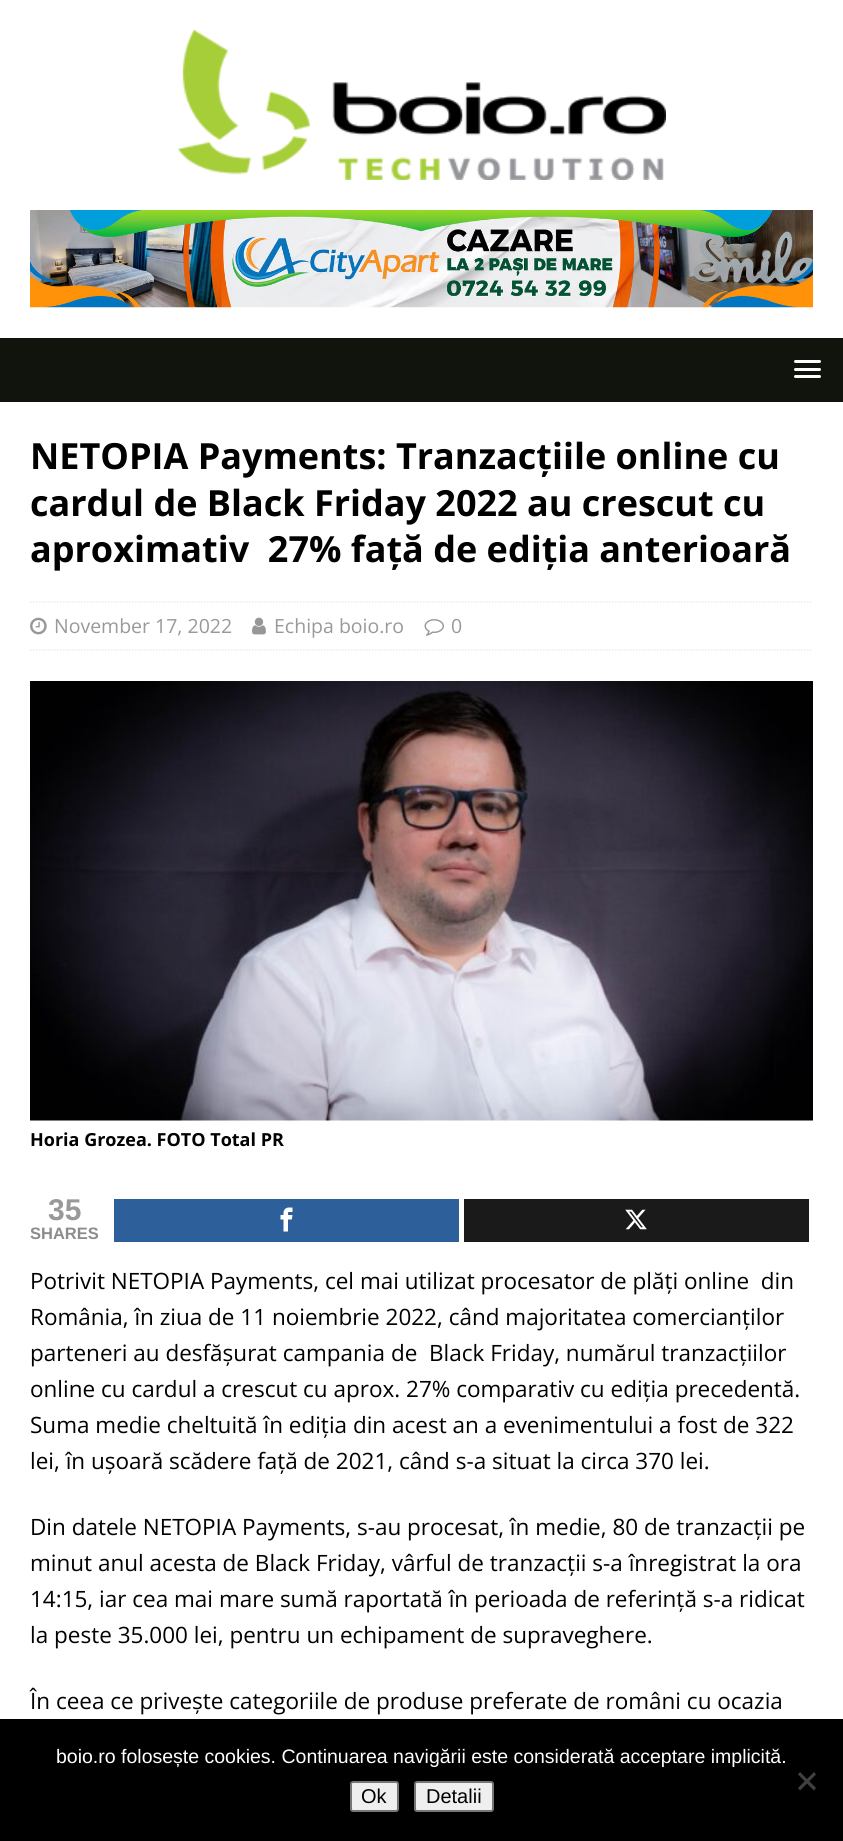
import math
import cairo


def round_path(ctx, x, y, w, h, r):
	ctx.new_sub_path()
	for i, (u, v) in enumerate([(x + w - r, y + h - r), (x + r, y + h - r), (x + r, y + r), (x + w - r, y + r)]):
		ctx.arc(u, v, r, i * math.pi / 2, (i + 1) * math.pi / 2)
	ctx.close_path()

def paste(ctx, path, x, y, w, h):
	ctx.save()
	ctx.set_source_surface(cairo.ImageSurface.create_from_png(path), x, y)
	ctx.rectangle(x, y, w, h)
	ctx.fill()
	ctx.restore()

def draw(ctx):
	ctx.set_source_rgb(1, 1, 1)
	ctx.paint()
	paste(ctx, 'media/1.png', 178, 30, 488, 150)
	paste(ctx, 'media/2.png', 30, 210, 783, 98)
	ctx.set_source_rgb(0.067, 0.078, 0.051)
	ctx.rectangle(0, 338, 843, 64)
	ctx.fill()
	ctx.set_source_rgb(1, 1, 1)
	round_path(ctx, 794, 360, 27, 3, 1.5)
	ctx.fill()
	round_path(ctx, 794, 368, 27, 3, 1.5)
	ctx.fill()
	round_path(ctx, 794, 375, 27, 3, 1.5)
	ctx.fill()
	ctx.select_font_face('Open Sans', cairo.FONT_SLANT_NORMAL, cairo.FONT_WEIGHT_BOLD)
	ctx.set_font_size(36)
	ctx.set_source_rgb(0, 0, 0)
	for x, y, s in [
		(30, 469, 'NETOPIA Payments: Tranzacțiile online cu'),
		(30, 516, 'cardul de Black Friday 2022 au crescut cu'),
		(30, 562, 'aproximativ  27% față de ediția anterioară'),
	]:
		ctx.move_to(x, y)
		ctx.show_text(s)
	ctx.new_path()
	ctx.move_to(30, 602)
	ctx.line_to(813, 602)
	ctx.set_source_rgb(0.922, 0.922, 0.922)
	ctx.set_line_width(1.5)
	ctx.set_dash([1.5, 1.5])
	ctx.stroke()
	ctx.new_path()
	ctx.move_to(30, 650)
	ctx.line_to(813, 650)
	ctx.stroke()
	paste(ctx, 'media/3.png', 30, 617, 17, 18)
	ctx.select_font_face('Open Sans')
	ctx.set_font_size(19.5)
	ctx.set_source_rgb(0.6, 0.6, 0.6)
	ctx.move_to(54, 633)
	ctx.show_text('November 17, 2022')
	paste(ctx, 'media/4.png', 252, 617, 14, 18)
	ctx.move_to(274, 633)
	ctx.show_text('Echipa boio.ro')
	paste(ctx, 'media/5.png', 424, 619, 20, 17)
	ctx.move_to(451, 633)
	ctx.show_text('0')
	paste(ctx, 'media/6.png', 30, 681, 783, 440)
	ctx.select_font_face('Open Sans', cairo.FONT_SLANT_NORMAL, cairo.FONT_WEIGHT_BOLD)
	ctx.set_font_size(18)
	ctx.set_source_rgb(0, 0, 0)
	ctx.move_to(30, 1146)
	ctx.show_text('Horia Grozea. FOTO Total PR')
	ctx.select_font_face('Liberation Sans', cairo.FONT_SLANT_NORMAL, cairo.FONT_WEIGHT_BOLD)
	ctx.set_font_size(30)
	ctx.set_source_rgb(0.6, 0.6, 0.6)
	ctx.move_to(48, 1220)
	ctx.show_text('35')
	ctx.set_font_size(16.5)
	ctx.set_source_rgb(0.541, 0.549, 0.557)
	ctx.move_to(30, 1239)
	ctx.show_text('SHARES')
	ctx.set_source_rgb(0.176, 0.373, 0.604)
	ctx.rectangle(114, 1199, 345, 43)
	ctx.fill()
	paste(ctx, 'media/7.png', 280, 1207, 13, 25)
	ctx.set_source_rgb(0.102, 0.102, 0.102)
	ctx.rectangle(464, 1199, 345, 43)
	ctx.fill()
	paste(ctx, 'media/8.png', 625, 1209, 22, 21)
	ctx.select_font_face('Open Sans')
	ctx.set_font_size(22.5)
	ctx.set_source_rgb(0, 0, 0)
	for x, y, s in [
		(30, 1289, 'Potrivit NETOPIA Payments, cel mai utilizat procesator de plăți online  din'),
		(30, 1325, 'România, în ziua de 11 noiembrie 2022, când majoritatea comercianților'),
		(30, 1361, 'parteneri au desfășurat campania de  Black Friday, numărul tranzacțiilor'),
		(30, 1397, 'online cu cardul a crescut cu aprox. 27% comparativ cu ediția precedentă.'),
		(30, 1433, 'Suma medie cheltuită în ediția din acest an a evenimentului a fost de 322'),
		(30, 1469, 'lei, în ușoară scădere față de 2021, când s-a situat la circa 370 lei.'),
		(30, 1535, 'Din datele NETOPIA Payments, s-au procesat, în medie, 80 de tranzacții pe'),
		(30, 1571, 'minut anul acesta de Black Friday, vârful de tranzacții s-a înregistrat la ora'),
		(30, 1607, '14:15, iar cea mai mare sumă raportată în perioada de referință s-a ridicat'),
		(30, 1643, 'la peste 35.000 lei, pentru un echipament de supraveghere.'),
		(30, 1709, 'În ceea ce privește categoriile de produse preferate de români cu ocazia'),
	]:
		ctx.move_to(x, y)
		ctx.show_text(s)
	ctx.rectangle(0, 1719, 843, 122)
	ctx.fill()
	ctx.select_font_face('Liberation Sans')
	ctx.set_font_size(19.5)
	ctx.set_source_rgb(1, 1, 1)
	ctx.move_to(56, 1763)
	ctx.show_text('boio.ro folosește cookies. Continuarea navigării este considerată acceptare implicită.')
	ctx.set_source_rgb(0.251, 0.251, 0.251)
	ctx.new_path()
	ctx.move_to(814, 1772)
	ctx.line_to(816, 1774.5)
	ctx.line_to(800, 1790.5)
	ctx.line_to(798, 1788)
	ctx.close_path()
	ctx.fill()
	ctx.new_path()
	ctx.move_to(798, 1774.5)
	ctx.line_to(800, 1772)
	ctx.line_to(816, 1788)
	ctx.line_to(814, 1790.5)
	ctx.close_path()
	ctx.fill()
	ctx.set_source_rgb(0.937, 0.937, 0.937)
	round_path(ctx, 351, 1782, 47, 29, 2)
	ctx.fill_preserve()
	ctx.set_source_rgb(0.463, 0.463, 0.463)
	ctx.set_line_width(2)
	ctx.set_dash([])
	ctx.stroke()
	ctx.set_font_size(20)
	ctx.set_source_rgb(0, 0, 0)
	ctx.move_to(361, 1803)
	ctx.show_text('Ok')
	ctx.set_source_rgb(0.937, 0.937, 0.937)
	round_path(ctx, 415, 1782, 78, 29, 2)
	ctx.fill_preserve()
	ctx.set_source_rgb(0.463, 0.463, 0.463)
	ctx.stroke()
	ctx.set_source_rgb(0, 0, 0)
	ctx.move_to(426, 1803)
	ctx.show_text('Detalii')


surface = cairo.ImageSurface(cairo.FORMAT_RGB24, 843, 1841)
ctx = cairo.Context(surface)
options = cairo.FontOptions()
options.set_hint_metrics(cairo.HINT_METRICS_OFF)
options.set_hint_style(cairo.HINT_STYLE_NONE)
ctx.set_font_options(options)
ctx.set_miter_limit(4)
draw(ctx)
surface.write_to_png('image.png')
